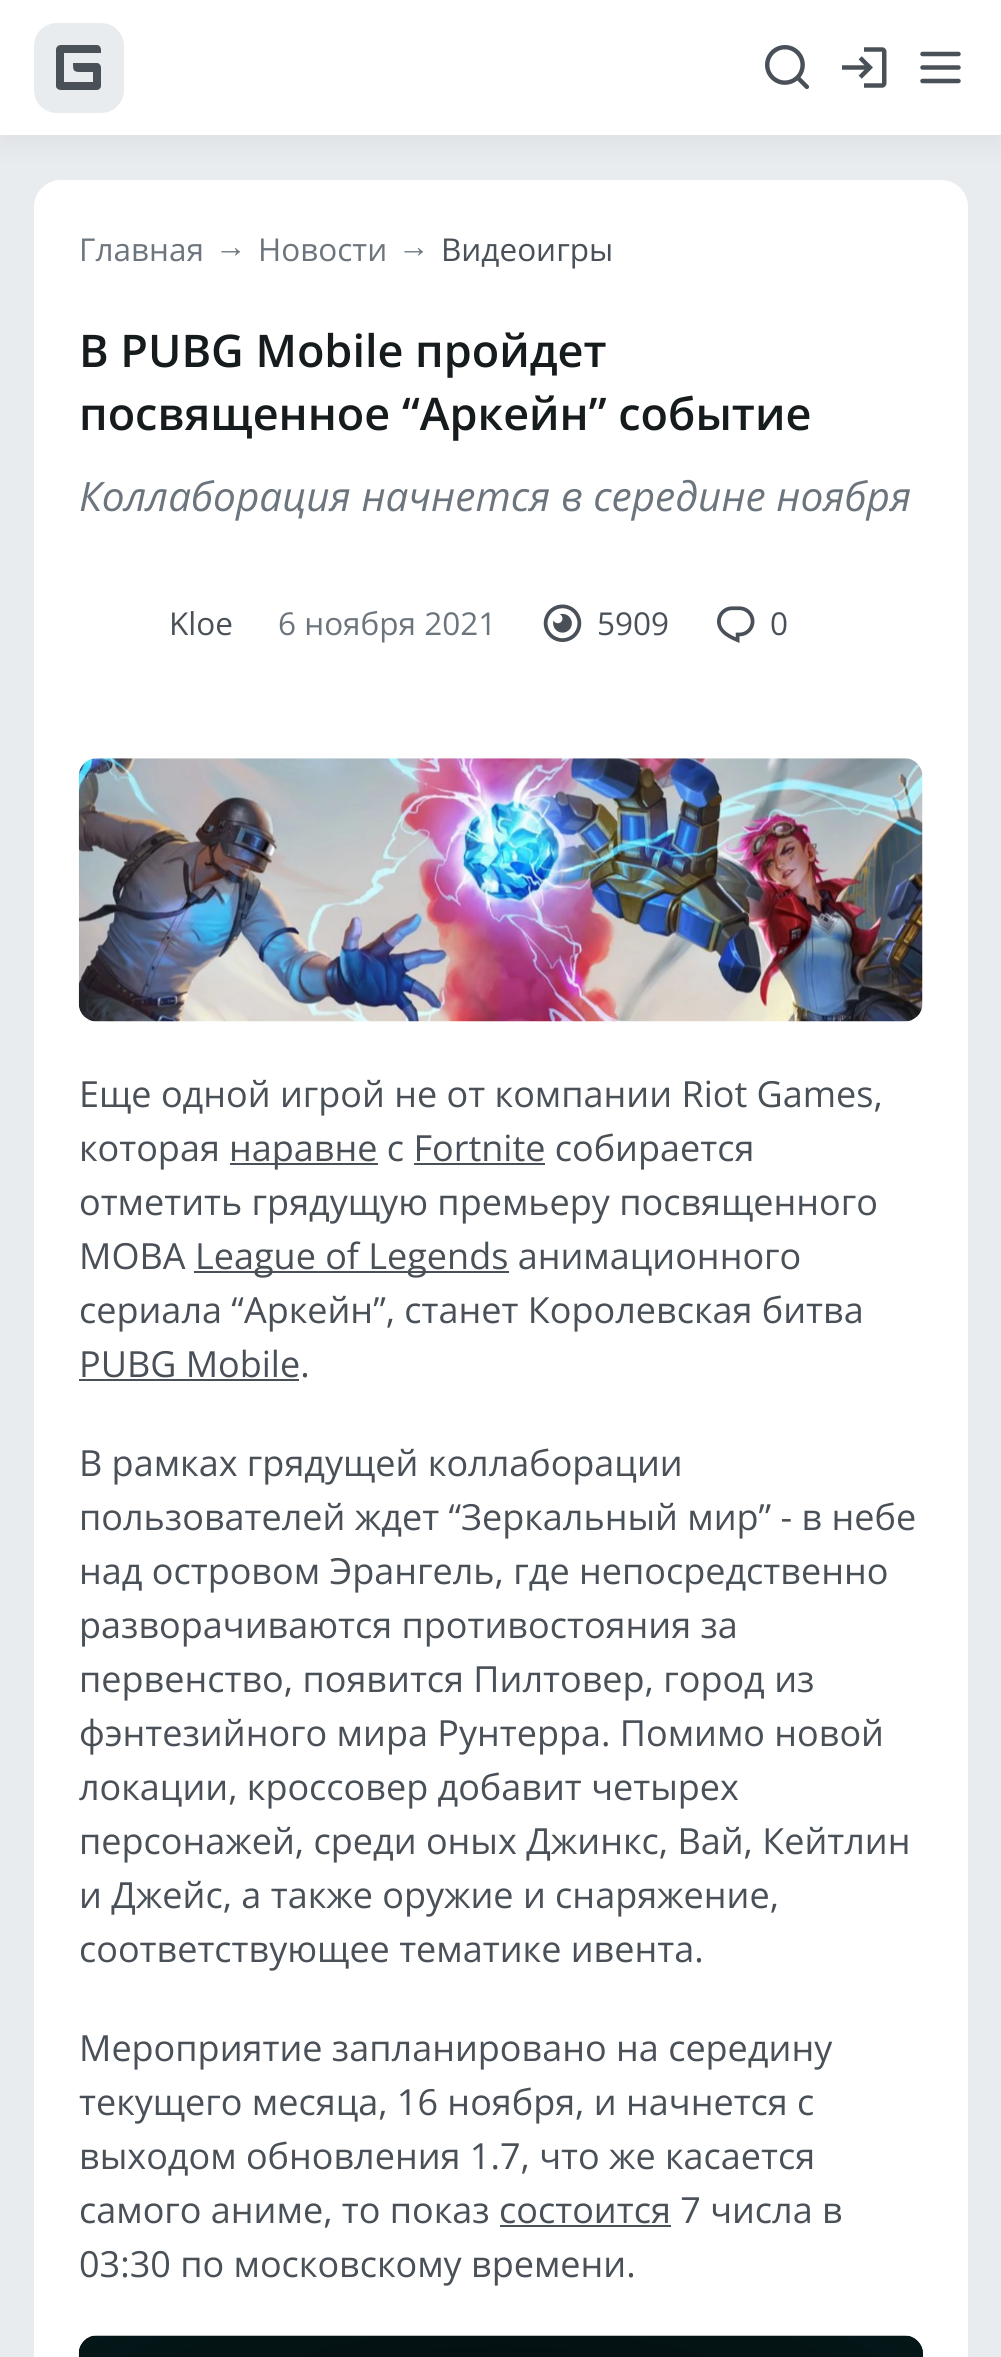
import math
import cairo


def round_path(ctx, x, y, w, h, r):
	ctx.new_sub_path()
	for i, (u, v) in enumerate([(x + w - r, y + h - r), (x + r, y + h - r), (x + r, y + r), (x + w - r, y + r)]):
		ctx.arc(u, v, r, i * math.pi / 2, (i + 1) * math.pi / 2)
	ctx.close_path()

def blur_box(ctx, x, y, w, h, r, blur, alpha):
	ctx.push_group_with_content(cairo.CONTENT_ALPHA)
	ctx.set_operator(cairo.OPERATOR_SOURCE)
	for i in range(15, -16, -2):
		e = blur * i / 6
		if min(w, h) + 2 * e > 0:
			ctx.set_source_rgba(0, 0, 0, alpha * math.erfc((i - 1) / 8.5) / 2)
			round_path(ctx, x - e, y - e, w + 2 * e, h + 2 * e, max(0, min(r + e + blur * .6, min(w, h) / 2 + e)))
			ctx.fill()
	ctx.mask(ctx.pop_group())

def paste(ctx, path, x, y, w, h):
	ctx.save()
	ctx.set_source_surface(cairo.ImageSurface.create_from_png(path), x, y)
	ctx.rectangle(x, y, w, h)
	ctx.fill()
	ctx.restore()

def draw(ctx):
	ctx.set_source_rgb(0.914, 0.925, 0.937)
	ctx.paint()
	ctx.set_source_rgb(1, 1, 1)
	round_path(ctx, 34, 180, 934, 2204, 27)
	ctx.fill()
	ctx.set_source_rgb(0, 0, 0)
	blur_box(ctx, 0, 9, 1001, 135, 0, 13.5, 0.05)
	ctx.set_source_rgb(1, 1, 1)
	ctx.rectangle(0, 0, 1001, 135)
	ctx.fill()
	ctx.set_source_rgb(0.914, 0.925, 0.937)
	round_path(ctx, 34, 23, 90, 90, 23)
	ctx.fill()
	ctx.set_source_rgb(0.286, 0.314, 0.341)
	ctx.new_path()
	ctx.move_to(56, 86)
	ctx.line_to(56, 50)
	ctx.curve_to(56, 47, 58, 45, 61, 45)
	ctx.line_to(97, 45)
	ctx.curve_to(99, 45, 101, 47, 101, 50)
	ctx.line_to(101, 53)
	ctx.line_to(64, 53)
	ctx.line_to(64, 82)
	ctx.line_to(93, 82)
	ctx.line_to(93, 72)
	ctx.line_to(80, 72)
	ctx.curve_to(73, 72, 73, 70, 73, 63)
	ctx.line_to(97, 63)
	ctx.curve_to(99, 63, 101, 65, 101, 68)
	ctx.line_to(101, 86)
	ctx.curve_to(101, 88, 99, 90, 97, 90)
	ctx.line_to(61, 90)
	ctx.curve_to(58, 90, 56, 88, 56, 86)
	ctx.close_path()
	ctx.fill()
	paste(ctx, 'media/1.png', 765, 45, 45, 45)
	paste(ctx, 'media/2.png', 842, 47, 45, 41)
	paste(ctx, 'media/3.png', 920, 51, 41, 33)
	ctx.select_font_face('Open Sans')
	ctx.set_font_size(31.5)
	ctx.set_source_rgb(0.424, 0.459, 0.49)
	ctx.move_to(79, 261)
	ctx.show_text('Главная')
	ctx.select_font_face('Liberation Sans')
	ctx.move_to(215, 257)
	ctx.show_text('→')
	ctx.select_font_face('Open Sans')
	ctx.move_to(258, 261)
	ctx.show_text('Новости')
	ctx.select_font_face('Liberation Sans')
	ctx.move_to(398, 257)
	ctx.show_text('→')
	ctx.select_font_face('Open Sans')
	ctx.set_source_rgb(0.286, 0.314, 0.341)
	ctx.move_to(441, 261)
	ctx.show_text('Видеоигры')
	ctx.select_font_face('Open Sans SemiBold')
	ctx.set_font_size(45)
	ctx.set_source_rgb(0.086, 0.106, 0.114)
	ctx.move_to(79, 367)
	ctx.show_text('В PUBG Mobile пройдет')
	ctx.move_to(79, 430)
	ctx.show_text('посвященное “Аркейн” событие')
	ctx.select_font_face('Open Sans', cairo.FONT_SLANT_ITALIC)
	ctx.set_font_size(40.5)
	ctx.set_source_rgb(0.424, 0.459, 0.49)
	ctx.move_to(79, 511)
	ctx.show_text('Коллаборация начнется в середине ноября')
	ctx.select_font_face('Open Sans')
	ctx.set_font_size(31.5)
	ctx.set_source_rgb(0.286, 0.314, 0.341)
	ctx.move_to(169, 635)
	ctx.show_text('Kloe')
	ctx.set_source_rgb(0.424, 0.459, 0.49)
	ctx.move_to(278, 635)
	ctx.show_text('6 ноября 2021')
	paste(ctx, 'media/4.png', 543, 604, 39, 38)
	ctx.set_source_rgb(0.286, 0.314, 0.341)
	ctx.move_to(597, 635)
	ctx.show_text('5909')
	paste(ctx, 'media/5.png', 717, 606, 38, 37)
	ctx.move_to(770, 635)
	ctx.show_text('0')
	paste(ctx, 'media/6.png', 78, 758, 845, 264)
	ctx.set_font_size(36)
	ctx.move_to(79, 1107)
	ctx.show_text('Еще одной игрой не от компании Riot Games,')
	ctx.move_to(79, 1161)
	ctx.show_text('которая')
	ctx.rectangle(230, 1163, 148, 2)
	ctx.fill()
	ctx.move_to(229, 1161)
	ctx.show_text('наравне с Fortnite собирается')
	ctx.rectangle(414, 1163, 131, 2)
	ctx.fill()
	ctx.move_to(79, 1215)
	ctx.show_text('отметить грядущую премьеру посвященного')
	ctx.move_to(79, 1269)
	ctx.show_text('MOBA')
	ctx.rectangle(194, 1271, 315, 2)
	ctx.fill()
	for x, y, s in [
		(195, 1269, 'League of Legends анимационного'),
		(79, 1323, 'сериала “Аркейн”, станет Королевская битва'),
		(79, 1377, 'PUBG Mobile.'),
	]:
		ctx.move_to(x, y)
		ctx.show_text(s)
	ctx.rectangle(79, 1379, 220, 2)
	ctx.fill()
	for x, y, s in [
		(79, 1476, 'В рамках грядущей коллаборации'),
		(79, 1530, 'пользователей ждет “Зеркальный мир” - в небе'),
		(79, 1584, 'над островом Эрангель, где непосредственно'),
		(79, 1638, 'разворачиваются противостояния за'),
		(79, 1692, 'первенство, появится Пилтовер, город из'),
		(79, 1746, 'фэнтезийного мира Рунтерра. Помимо новой'),
		(79, 1800, 'локации, кроссовер добавит четырех'),
		(79, 1854, 'персонажей, среди оных Джинкс, Вай, Кейтлин'),
		(79, 1908, 'и Джейс, а также оружие и снаряжение,'),
		(79, 1962, 'соответствующее тематике ивента.'),
		(79, 2061, 'Мероприятие запланировано на середину'),
		(79, 2115, 'текущего месяца, 16 ноября, и начнется с'),
		(79, 2169, 'выходом обновления 1.7, что же касается'),
		(79, 2223, 'самого аниме, то показ состоится 7 числа в'),
	]:
		ctx.move_to(x, y)
		ctx.show_text(s)
	ctx.rectangle(500, 2225, 171, 2)
	ctx.fill()
	ctx.move_to(79, 2277)
	ctx.show_text('03:30 по московскому времени.')
	ctx.set_source_rgb(0, 0, 0)
	round_path(ctx, 79, 2336, 844, 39, 18)
	ctx.fill()
	paste(ctx, 'media/7.png', 78, 2335, 845, 22)
	gradient = cairo.RadialGradient(0, 0, 0, 0, 0, 1)
	gradient.set_matrix(cairo.Matrix(1 / 844, 0, 0, 1 / 475, -1 * 501 / 844, -1 * 2573 / 475))
	gradient.add_color_stop_rgba(0, 0.024, 0.118, 0.125, 0.2)
	gradient.add_color_stop_rgba(1, 0.024, 0.118, 0.125, 1)
	ctx.set_source(gradient)
	round_path(ctx, 79, 2336, 844, 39, 18)
	ctx.fill()


surface = cairo.ImageSurface(cairo.FORMAT_RGB24, 1001, 2357)
ctx = cairo.Context(surface)
options = cairo.FontOptions()
options.set_hint_metrics(cairo.HINT_METRICS_OFF)
options.set_hint_style(cairo.HINT_STYLE_NONE)
ctx.set_font_options(options)
ctx.set_miter_limit(4)
draw(ctx)
surface.write_to_png('image.png')
